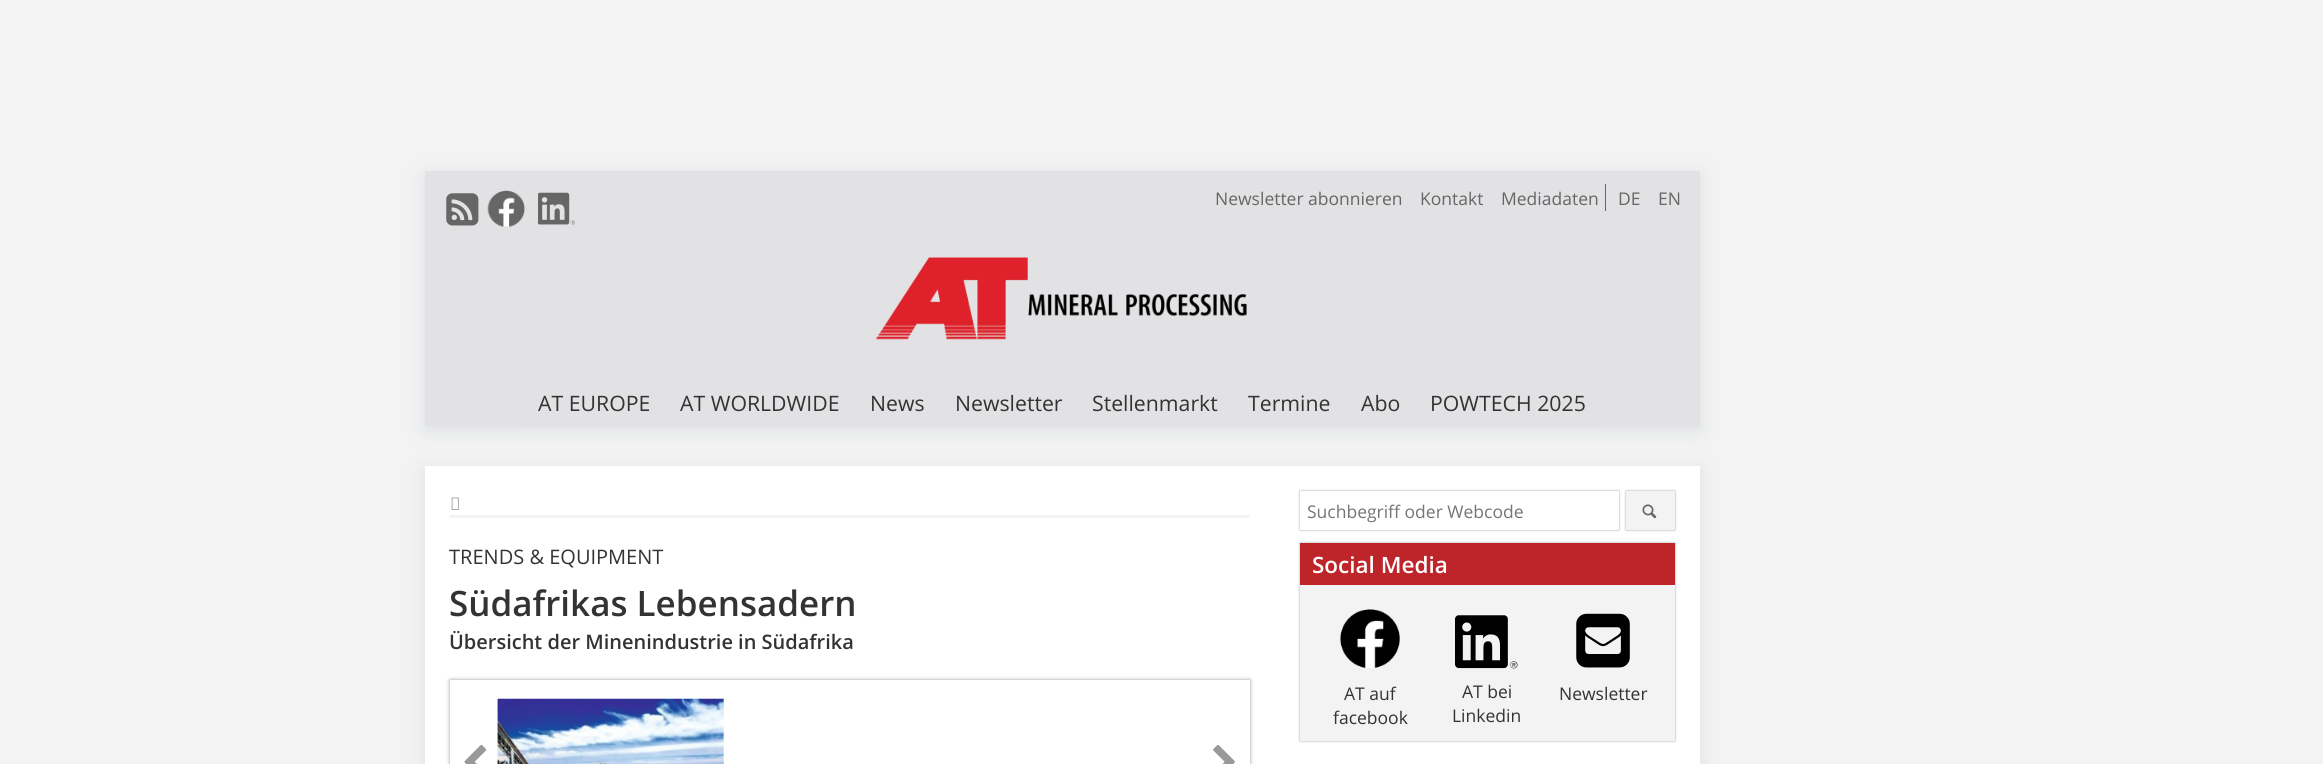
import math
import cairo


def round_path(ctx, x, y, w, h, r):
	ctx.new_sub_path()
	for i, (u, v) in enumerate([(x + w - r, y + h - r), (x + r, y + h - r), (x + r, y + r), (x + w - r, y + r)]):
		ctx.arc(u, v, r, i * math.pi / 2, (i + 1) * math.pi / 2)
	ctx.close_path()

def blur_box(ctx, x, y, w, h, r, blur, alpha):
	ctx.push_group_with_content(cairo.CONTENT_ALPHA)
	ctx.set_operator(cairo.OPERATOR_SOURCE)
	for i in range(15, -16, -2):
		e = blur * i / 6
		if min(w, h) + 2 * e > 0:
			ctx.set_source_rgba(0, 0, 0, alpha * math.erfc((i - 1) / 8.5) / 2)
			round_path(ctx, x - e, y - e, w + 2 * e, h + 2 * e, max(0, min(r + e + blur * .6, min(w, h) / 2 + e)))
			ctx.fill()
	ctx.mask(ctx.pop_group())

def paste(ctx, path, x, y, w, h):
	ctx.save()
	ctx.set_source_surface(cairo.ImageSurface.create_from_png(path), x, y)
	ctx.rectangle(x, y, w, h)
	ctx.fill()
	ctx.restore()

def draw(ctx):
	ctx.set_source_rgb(0.953, 0.953, 0.953)
	ctx.paint()
	ctx.set_source_rgb(0.404, 0.478, 0.553)
	blur_box(ctx, 425, 175, 1275, 255, 0, 9.5, 0.17)
	ctx.set_source_rgb(0.886, 0.886, 0.894)
	ctx.rectangle(425, 171, 1275, 255)
	ctx.fill()
	paste(ctx, 'media/1.png', 446, 193, 33, 33)
	paste(ctx, 'media/2.png', 487, 190, 38, 37)
	paste(ctx, 'media/3.png', 538, 192, 37, 33)
	ctx.select_font_face('Open Sans')
	ctx.set_font_size(17.5)
	ctx.set_source_rgb(0.4, 0.4, 0.4)
	for x, y, s in [
		(1215, 205, 'Newsletter abonnieren'),
		(1420, 205, 'Kontakt'),
		(1501, 205, 'Mediadaten'),
	]:
		ctx.move_to(x, y)
		ctx.show_text(s)
	ctx.rectangle(1605, 184, 1, 27)
	ctx.fill()
	ctx.move_to(1618, 205)
	ctx.show_text('DE')
	ctx.move_to(1658, 205)
	ctx.show_text('EN')
	paste(ctx, 'media/4.png', 876, 257, 371, 83)
	ctx.set_source_rgb(0.886, 0.886, 0.894)
	ctx.rectangle(525, 426, 138, 1)
	ctx.fill()
	ctx.set_font_size(21.25)
	ctx.set_source_rgb(0.2, 0.2, 0.2)
	ctx.move_to(538, 411)
	ctx.show_text('AT EUROPE')
	ctx.set_source_rgb(0.886, 0.886, 0.894)
	ctx.rectangle(668, 426, 185, 1)
	ctx.fill()
	ctx.set_source_rgb(0.2, 0.2, 0.2)
	ctx.move_to(680, 411)
	ctx.show_text('AT WORLDWIDE')
	ctx.set_source_rgb(0.886, 0.886, 0.894)
	ctx.rectangle(858, 426, 80, 1)
	ctx.fill()
	ctx.set_source_rgb(0.2, 0.2, 0.2)
	ctx.move_to(870, 411)
	ctx.show_text('News')
	ctx.set_source_rgb(0.886, 0.886, 0.894)
	ctx.rectangle(943, 426, 132, 1)
	ctx.fill()
	ctx.set_source_rgb(0.2, 0.2, 0.2)
	ctx.move_to(955, 411)
	ctx.show_text('Newsletter')
	ctx.set_source_rgb(0.886, 0.886, 0.894)
	ctx.rectangle(1080, 426, 150, 1)
	ctx.fill()
	ctx.set_source_rgb(0.2, 0.2, 0.2)
	ctx.move_to(1092, 411)
	ctx.show_text('Stellenmarkt')
	ctx.set_source_rgb(0.886, 0.886, 0.894)
	ctx.rectangle(1236, 426, 108, 1)
	ctx.fill()
	ctx.set_source_rgb(0.2, 0.2, 0.2)
	ctx.move_to(1248, 411)
	ctx.show_text('Termine')
	ctx.set_source_rgb(0.886, 0.886, 0.894)
	ctx.rectangle(1349, 426, 64, 1)
	ctx.fill()
	ctx.set_source_rgb(0.2, 0.2, 0.2)
	ctx.move_to(1361, 411)
	ctx.show_text('Abo')
	ctx.set_source_rgb(0.886, 0.886, 0.894)
	ctx.rectangle(1418, 426, 181, 1)
	ctx.fill()
	ctx.set_source_rgb(0.2, 0.2, 0.2)
	ctx.move_to(1430, 411)
	ctx.show_text('POWTECH 2025')
	ctx.set_source_rgb(0.404, 0.478, 0.553)
	blur_box(ctx, 425, 470, 1275, 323, 0, 9.5, 0.17)
	ctx.set_source_rgb(1, 1, 1)
	ctx.rectangle(425, 466, 1275, 298)
	ctx.fill()
	ctx.set_source_rgb(0.953, 0.953, 0.953)
	ctx.rectangle(450, 515, 800, 3)
	ctx.fill()
	paste(ctx, 'media/5.png', 451, 497, 8, 13)
	ctx.set_font_size(20)
	ctx.set_source_rgb(0.2, 0.2, 0.2)
	ctx.move_to(449, 564)
	ctx.show_text('TRENDS & EQUIPMENT')
	ctx.select_font_face('Open Sans SemiBold')
	ctx.set_font_size(35)
	ctx.move_to(449, 616)
	ctx.show_text('Südafrikas Lebensadern')
	ctx.set_font_size(20)
	ctx.move_to(449, 649)
	ctx.show_text('Übersicht der Minenindustrie in Südafrika')
	ctx.save()
	ctx.set_fill_rule(cairo.FILL_RULE_EVEN_ODD)
	ctx.new_path()
	ctx.move_to(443, 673)
	ctx.line_to(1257, 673)
	ctx.line_to(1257, 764)
	ctx.line_to(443, 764)
	ctx.close_path()
	ctx.move_to(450, 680)
	ctx.line_to(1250, 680)
	ctx.line_to(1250, 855)
	ctx.line_to(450, 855)
	ctx.close_path()
	ctx.clip()
	ctx.set_source_rgb(0.6, 0.6, 0.6)
	blur_box(ctx, 450, 680, 800, 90, 0, 2, 1)
	ctx.restore()
	paste(ctx, 'media/6.png', 464, 744, 23, 20)
	paste(ctx, 'media/7.png', 497, 698, 227, 66)
	paste(ctx, 'media/8.png', 1213, 745, 22, 19)
	ctx.set_source_rgb(0.6, 0.6, 0.6)
	blur_box(ctx, 1300, 491, 319, 39, 0, 1, 1)
	ctx.set_source_rgb(1, 1, 1)
	ctx.rectangle(1300, 491, 319, 39)
	ctx.fill()
	ctx.select_font_face('Open Sans')
	ctx.set_font_size(17.5)
	ctx.set_source_rgb(0.459, 0.459, 0.459)
	ctx.move_to(1307, 518)
	ctx.show_text('Suchbegriff oder Webcode')
	ctx.set_source_rgb(0.6, 0.6, 0.6)
	blur_box(ctx, 1626, 491, 49, 39, 0, 1, 1)
	ctx.set_source_rgb(0.953, 0.953, 0.953)
	ctx.rectangle(1626, 491, 49, 39)
	ctx.fill()
	paste(ctx, 'media/9.png', 1642, 504, 15, 15)
	ctx.set_source_rgb(0.6, 0.6, 0.6)
	blur_box(ctx, 1300, 543, 375, 198, 0, 1, 1)
	ctx.set_source_rgb(0.953, 0.953, 0.953)
	ctx.rectangle(1300, 585, 375, 156)
	ctx.fill()
	ctx.set_source_rgb(0.745, 0.145, 0.169)
	ctx.rectangle(1300, 543, 375, 42)
	ctx.fill()
	ctx.select_font_face('Open Sans SemiBold')
	ctx.set_font_size(22.5)
	ctx.set_source_rgb(1, 1, 1)
	ctx.move_to(1312, 573)
	ctx.show_text('Social Media')
	paste(ctx, 'media/10.png', 1340, 609, 60, 59)
	ctx.select_font_face('Open Sans')
	ctx.set_font_size(17.5)
	ctx.set_source_rgb(0.2, 0.2, 0.2)
	ctx.move_to(1344, 700)
	ctx.show_text('AT auf')
	ctx.move_to(1333, 724)
	ctx.show_text('facebook')
	paste(ctx, 'media/11.png', 1455, 615, 63, 54)
	ctx.move_to(1462, 698)
	ctx.show_text('AT bei')
	ctx.move_to(1452, 722)
	ctx.show_text('Linkedin')
	paste(ctx, 'media/12.png', 1576, 613, 54, 55)
	ctx.move_to(1559, 700)
	ctx.show_text('Newsletter')


surface = cairo.ImageSurface(cairo.FORMAT_RGB24, 2323, 764)
ctx = cairo.Context(surface)
options = cairo.FontOptions()
options.set_hint_metrics(cairo.HINT_METRICS_OFF)
options.set_hint_style(cairo.HINT_STYLE_NONE)
ctx.set_font_options(options)
ctx.set_miter_limit(4)
draw(ctx)
surface.write_to_png('image.png')
